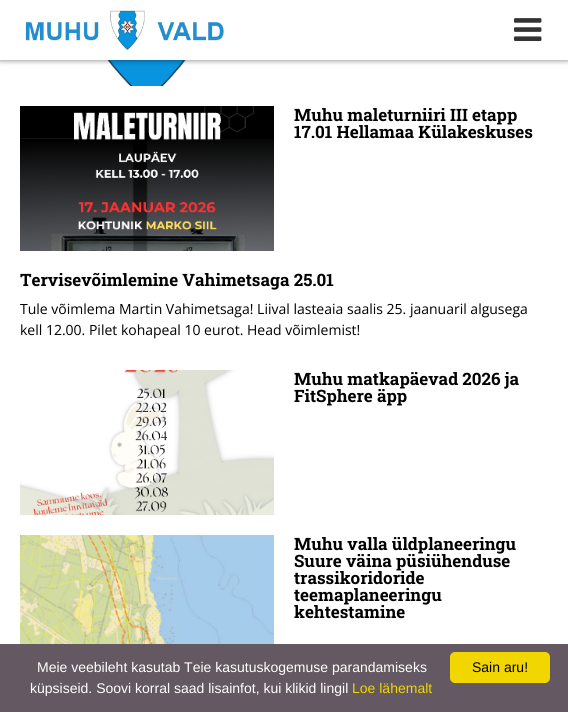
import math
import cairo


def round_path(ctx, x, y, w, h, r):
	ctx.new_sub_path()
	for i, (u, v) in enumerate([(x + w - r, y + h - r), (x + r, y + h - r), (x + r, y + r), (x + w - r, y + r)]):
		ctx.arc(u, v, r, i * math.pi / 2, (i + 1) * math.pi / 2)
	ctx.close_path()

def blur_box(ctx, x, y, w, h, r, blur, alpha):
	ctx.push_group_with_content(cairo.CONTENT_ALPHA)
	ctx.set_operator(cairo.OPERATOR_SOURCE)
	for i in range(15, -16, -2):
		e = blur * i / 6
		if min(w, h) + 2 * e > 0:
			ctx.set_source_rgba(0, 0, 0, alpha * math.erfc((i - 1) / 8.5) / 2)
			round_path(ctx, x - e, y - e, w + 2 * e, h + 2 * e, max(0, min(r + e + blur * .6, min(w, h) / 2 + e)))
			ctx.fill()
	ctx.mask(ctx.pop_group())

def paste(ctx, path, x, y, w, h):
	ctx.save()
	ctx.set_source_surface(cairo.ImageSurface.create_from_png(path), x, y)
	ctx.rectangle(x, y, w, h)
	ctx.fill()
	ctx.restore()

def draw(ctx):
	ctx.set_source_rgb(1, 1, 1)
	ctx.paint()
	paste(ctx, 'media/3.png', 20, 60, 254, 26)
	ctx.set_source_rgb(0, 0, 0)
	blur_box(ctx, 0, 1, 568, 60, 0, 2.5, 0.4)
	ctx.set_source_rgb(1, 1, 1)
	ctx.rectangle(0, 0, 568, 60)
	ctx.fill()
	paste(ctx, 'media/1.png', 25, 10, 199, 40)
	paste(ctx, 'media/2.png', 514, 18, 28, 23)
	paste(ctx, 'media/4.png', 20, 106, 254, 145)
	ctx.select_font_face('Roboto Slab', cairo.FONT_SLANT_NORMAL, cairo.FONT_WEIGHT_BOLD)
	ctx.set_font_size(17)
	ctx.set_source_rgb(0, 0, 0)
	for x, y, s in [
		(294, 121, 'Muhu maleturniiri III etapp'),
		(294, 138, '17.01 Hellamaa Külakeskuses'),
		(20, 286, 'Tervisevõimlemine Vahimetsaga 25.01'),
	]:
		ctx.move_to(x, y)
		ctx.show_text(s)
	ctx.select_font_face('Open Sans')
	ctx.set_font_size(14)
	ctx.move_to(20, 314)
	ctx.show_text('Tule võimlema Martin Vahimetsaga! Liival lasteaia saalis 25. jaanuaril algusega')
	ctx.move_to(20, 335)
	ctx.show_text('kell 12.00. Pilet kohapeal 10 eurot. Head võimlemist!')
	paste(ctx, 'media/5.png', 20, 370, 254, 145)
	ctx.select_font_face('Roboto Slab', cairo.FONT_SLANT_NORMAL, cairo.FONT_WEIGHT_BOLD)
	ctx.set_font_size(17)
	ctx.move_to(294, 385)
	ctx.show_text('Muhu matkapäevad 2026 ja')
	ctx.move_to(294, 402)
	ctx.show_text('FitSphere äpp')
	paste(ctx, 'media/6.png', 20, 535, 254, 109)
	for x, y, s in [
		(294, 550, 'Muhu valla üldplaneeringu'),
		(294, 567, 'Suure väina püsiühenduse'),
		(294, 584, 'trassikoridoride'),
		(294, 601, 'teemaplaneeringu'),
		(294, 618, 'kehtestamine'),
	]:
		ctx.move_to(x, y)
		ctx.show_text(s)
	ctx.set_source_rgb(0.392, 0.345, 0.384)
	ctx.rectangle(0, 644, 568, 68)
	ctx.fill()
	ctx.select_font_face('Liberation Sans')
	ctx.set_font_size(14)
	ctx.set_source_rgb(1, 1, 1)
	ctx.move_to(37, 672)
	ctx.show_text('Meie veebileht kasutab Teie kasutuskogemuse parandamiseks')
	ctx.move_to(30, 693)
	ctx.show_text('küpsiseid. Soovi korral saad lisainfot, kui klikid lingil')
	ctx.set_source_rgb(0.945, 0.839, 0)
	ctx.move_to(352, 693)
	ctx.show_text('Loe lähemalt')
	round_path(ctx, 450, 652, 100, 31, 5)
	ctx.fill()
	ctx.set_source_rgb(0, 0, 0)
	ctx.move_to(472, 672)
	ctx.show_text('Sain aru!')


surface = cairo.ImageSurface(cairo.FORMAT_RGB24, 568, 712)
ctx = cairo.Context(surface)
options = cairo.FontOptions()
options.set_hint_metrics(cairo.HINT_METRICS_OFF)
options.set_hint_style(cairo.HINT_STYLE_NONE)
ctx.set_font_options(options)
ctx.set_miter_limit(4)
draw(ctx)
surface.write_to_png('image.png')
